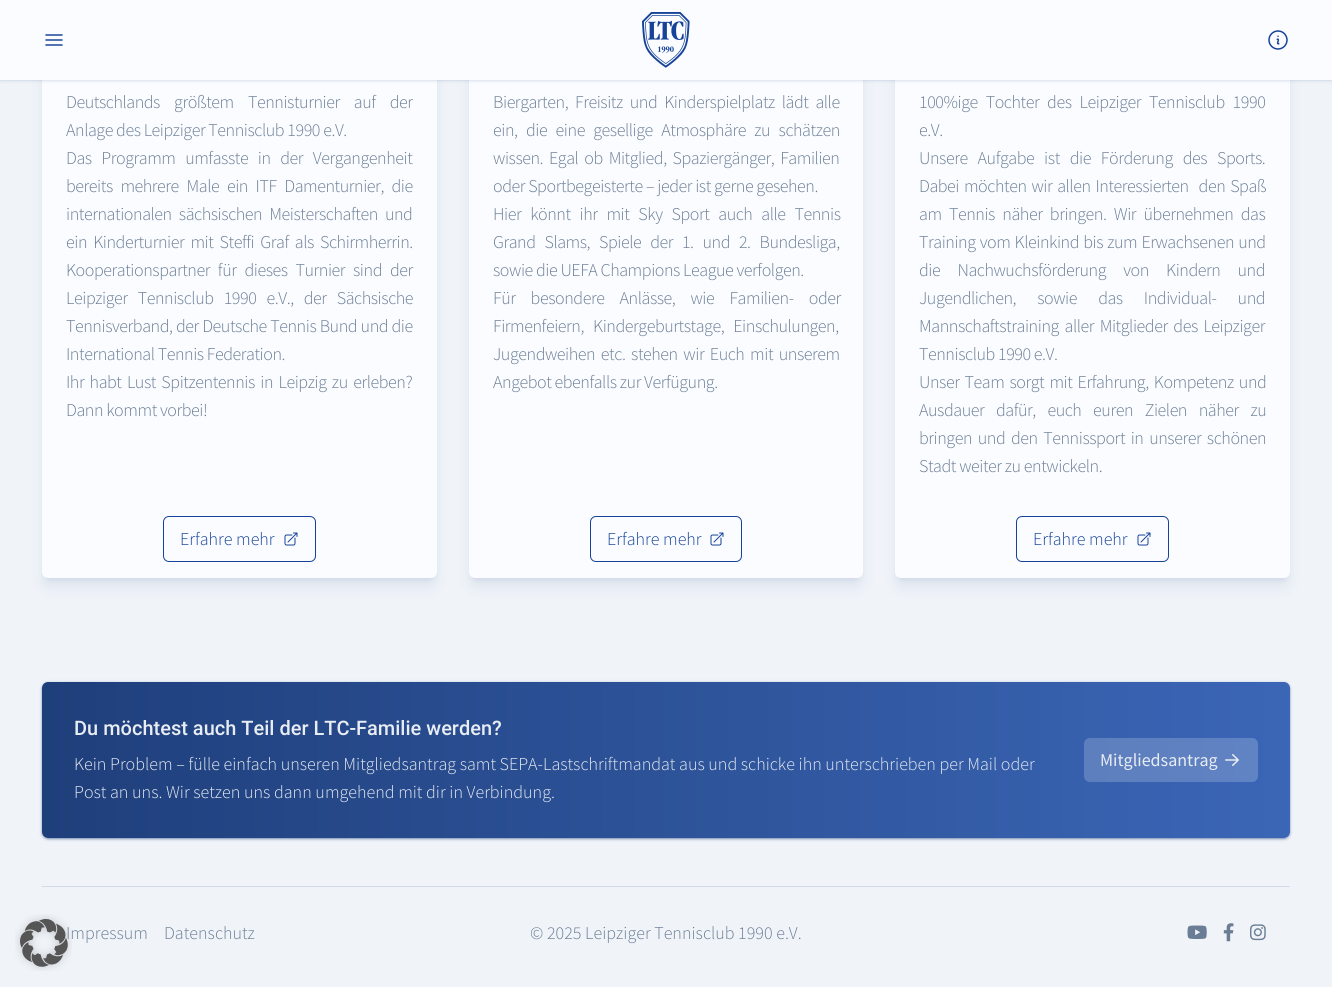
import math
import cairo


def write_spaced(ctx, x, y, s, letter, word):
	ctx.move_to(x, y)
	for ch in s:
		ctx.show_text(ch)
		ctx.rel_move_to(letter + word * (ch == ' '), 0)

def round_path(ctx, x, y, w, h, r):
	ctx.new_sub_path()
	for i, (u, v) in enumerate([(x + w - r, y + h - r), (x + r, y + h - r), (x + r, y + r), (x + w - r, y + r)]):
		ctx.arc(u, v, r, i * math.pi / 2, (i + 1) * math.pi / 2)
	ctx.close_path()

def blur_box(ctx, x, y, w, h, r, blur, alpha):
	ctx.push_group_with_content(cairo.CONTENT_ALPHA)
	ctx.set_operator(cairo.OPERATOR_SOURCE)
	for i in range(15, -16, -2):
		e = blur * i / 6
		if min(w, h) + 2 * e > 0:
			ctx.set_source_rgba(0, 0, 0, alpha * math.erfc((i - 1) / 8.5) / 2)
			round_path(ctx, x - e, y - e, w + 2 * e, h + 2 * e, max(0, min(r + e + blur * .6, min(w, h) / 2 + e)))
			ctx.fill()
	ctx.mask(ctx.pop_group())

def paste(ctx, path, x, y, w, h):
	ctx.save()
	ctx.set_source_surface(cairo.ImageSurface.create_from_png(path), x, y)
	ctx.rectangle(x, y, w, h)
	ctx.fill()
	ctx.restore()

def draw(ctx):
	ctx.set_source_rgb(0.941, 0.957, 0.973)
	ctx.paint()
	ctx.select_font_face('Source Sans Pro Light')
	ctx.set_font_size(18)
	ctx.set_source_rgb(0.42, 0.49, 0.58)
	ctx.move_to(66, 939)
	ctx.show_text('Impressum')
	paste(ctx, 'media/1.png', 15, 914, 57, 57)
	ctx.set_source_rgb(0.031, 0.169, 0.431)
	blur_box(ctx, 46, -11, 387, 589, 2, 3, 0.1)
	blur_box(ctx, 45, -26, 389, 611, 3, 7.5, 0.1)
	ctx.set_source_rgb(0.98, 0.988, 1)
	round_path(ctx, 42, -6, 395, 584, 6)
	ctx.fill()
	ctx.set_source_rgb(0.031, 0.169, 0.431)
	blur_box(ctx, 473, -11, 386, 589, 2, 3, 0.1)
	blur_box(ctx, 472, -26, 388, 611, 3, 7.5, 0.1)
	ctx.set_source_rgb(0.98, 0.988, 1)
	round_path(ctx, 469, -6, 394, 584, 6)
	ctx.fill()
	ctx.set_source_rgb(0.031, 0.169, 0.431)
	blur_box(ctx, 899, -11, 387, 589, 2, 3, 0.1)
	blur_box(ctx, 898, -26, 389, 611, 3, 7.5, 0.1)
	ctx.set_source_rgb(0.98, 0.988, 1)
	round_path(ctx, 895, -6, 395, 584, 6)
	ctx.fill()
	ctx.set_source_rgb(0.031, 0.169, 0.431)
	blur_box(ctx, 1, 2, 1330, 78, 0, 1, 0.1)
	blur_box(ctx, 0, 1, 1332, 80, 0, 1.5, 0.1)
	ctx.set_source_rgb(0.98, 0.988, 1)
	ctx.rectangle(0, 0, 1332, 80)
	ctx.fill()
	ctx.new_path()
	ctx.move_to(46, 35)
	ctx.line_to(62, 35)
	ctx.move_to(46, 40)
	ctx.line_to(62, 40)
	ctx.move_to(46, 45)
	ctx.line_to(62, 45)
	ctx.set_source_rgb(0.086, 0.263, 0.596)
	ctx.set_line_width(1.5)
	ctx.set_line_cap(cairo.LINE_CAP_ROUND)
	ctx.set_line_join(cairo.LINE_JOIN_ROUND)
	ctx.stroke()
	paste(ctx, 'media/2.png', 642, 12, 48, 56)
	paste(ctx, 'media/3.png', 1268, 30, 20, 20)
	ctx.set_source_rgb(0.42, 0.49, 0.58)
	write_spaced(ctx, 66, 108, 'Deutschlands größtem Tennisturnier auf der', -0.45, 11)
	write_spaced(ctx, 66, 136, 'Anlage des Leipziger Tennisclub 1990 e.V.', -0.45, 0)
	write_spaced(ctx, 66, 164, 'Das Programm umfasste in der Vergangenheit', -0.45, 6.5)
	write_spaced(ctx, 66, 192, 'bereits mehrere Male ein ITF Damenturnier, die', -0.45, 4.5)
	write_spaced(ctx, 66, 220, 'internationalen sächsischen Meisterschaften und', -0.45, 4)
	write_spaced(ctx, 66, 248, 'ein Kinderturnier mit Steffi Graf als Schirmherrin.', -0.45, 3)
	write_spaced(ctx, 66, 276, 'Kooperationspartner für dieses Turnier sind der', -0.45, 4.75)
	write_spaced(ctx, 66, 304, 'Leipziger Tennisclub 1990 e.V., der Sächsische', -0.45, 7)
	write_spaced(ctx, 66, 332, 'Tennisverband, der Deutsche Tennis Bund und die', -0.45, 0.25)
	write_spaced(ctx, 66, 360, 'International Tennis Federation.', -0.45, 0)
	write_spaced(ctx, 66, 388, 'Ihr habt Lust Spitzentennis in Leipzig zu erleben?', -0.45, 2.25)
	write_spaced(ctx, 66, 416, 'Dann kommt vorbei!', -0.45, 0)
	round_path(ctx, 163.5, 516.5, 152, 45, 5.5)
	ctx.set_source_rgb(0.086, 0.263, 0.596)
	ctx.set_line_width(1)
	ctx.set_line_cap(cairo.LINE_CAP_BUTT)
	ctx.set_line_join(cairo.LINE_JOIN_MITER)
	ctx.stroke()
	ctx.move_to(180, 545)
	ctx.show_text('Erfahre mehr')
	paste(ctx, 'media/4.png', 284, 532, 14, 14)
	ctx.set_source_rgb(0.42, 0.49, 0.58)
	write_spaced(ctx, 493, 108, 'Biergarten, Freisitz und Kinderspielplatz lädt alle', -0.45, 3.75)
	write_spaced(ctx, 493, 136, 'ein, die eine gesellige Atmosphäre zu schätzen', -0.45, 5.25)
	write_spaced(ctx, 493, 164, 'wissen. Egal ob Mitglied, Spaziergänger, Familien', -0.45, 2.75)
	write_spaced(ctx, 493, 192, 'oder Sportbegeisterte – jeder ist gerne gesehen.', -0.45, 0)
	write_spaced(ctx, 493, 220, 'Hier könnt ihr mit Sky Sport auch alle Tennis', -0.45, 5.75)
	write_spaced(ctx, 493, 248, 'Grand Slams, Spiele der 1. und 2. Bundesliga,', -0.45, 5.75)
	write_spaced(ctx, 493, 276, 'sowie die UEFA Champions League verfolgen.', -0.45, 0)
	write_spaced(ctx, 493, 304, 'Für besondere Anlässe, wie Familien- oder', -0.45, 12)
	write_spaced(ctx, 493, 332, 'Firmenfeiern, Kindergeburtstage, Einschulungen,', -0.45, 6)
	write_spaced(ctx, 493, 360, 'Jugendweihen etc. stehen wir Euch mit unserem', -0.45, 2.5)
	write_spaced(ctx, 493, 388, 'Angebot ebenfalls zur Verfügung.', -0.45, 0)
	round_path(ctx, 590.5, 516.5, 151, 45, 5.5)
	ctx.set_source_rgb(0.086, 0.263, 0.596)
	ctx.stroke()
	ctx.move_to(607, 545)
	ctx.show_text('Erfahre mehr')
	paste(ctx, 'media/4.png', 710, 532, 14, 14)
	ctx.set_source_rgb(0.42, 0.49, 0.58)
	write_spaced(ctx, 919, 108, '100%ige Tochter des Leipziger Tennisclub 1990', -0.45, 4.75)
	write_spaced(ctx, 919, 136, 'e.V.', -0.45, 0)
	write_spaced(ctx, 919, 164, 'Unsere Aufgabe ist die Förderung des Sports.', -0.45, 6.75)
	write_spaced(ctx, 919, 192, 'Dabei möchten wir allen Interessierten  den Spaß', -0.45, 1.75)
	write_spaced(ctx, 919, 220, 'am Tennis näher bringen. Wir übernehmen das', -0.45, 4.25)
	write_spaced(ctx, 919, 248, 'Training vom Kleinkind bis zum Erwachsenen und', -0.45, 1)
	write_spaced(ctx, 919, 276, 'die Nachwuchsförderung von Kindern und', -0.45, 14)
	write_spaced(ctx, 919, 304, 'Jugendlichen, sowie das Individual- und', -0.45, 18)
	write_spaced(ctx, 919, 332, 'Mannschaftstraining aller Mitglieder des Leipziger', -0.45, 2.5)
	write_spaced(ctx, 919, 360, 'Tennisclub 1990 e.V.', -0.45, 0)
	write_spaced(ctx, 919, 388, 'Unser Team sorgt mit Erfahrung, Kompetenz und', -0.45, 2)
	write_spaced(ctx, 919, 416, 'Ausdauer dafür, euch euren Zielen näher zu', -0.45, 8.5)
	write_spaced(ctx, 919, 444, 'bringen und den Tennissport in unserer schönen', -0.45, 2.5)
	write_spaced(ctx, 919, 472, 'Stadt weiter zu entwickeln.', -0.45, 0)
	round_path(ctx, 1016.5, 516.5, 152, 45, 5.5)
	ctx.set_source_rgb(0.086, 0.263, 0.596)
	ctx.stroke()
	ctx.move_to(1033, 545)
	ctx.show_text('Erfahre mehr')
	paste(ctx, 'media/4.png', 1137, 532, 14, 14)
	ctx.save()
	ctx.set_fill_rule(cairo.FILL_RULE_EVEN_ODD)
	ctx.new_path()
	ctx.move_to(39, 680)
	ctx.line_to(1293, 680)
	ctx.line_to(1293, 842)
	ctx.line_to(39, 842)
	ctx.close_path()
	ctx.move_to(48, 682)
	ctx.line_to(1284, 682)
	ctx.curve_to(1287.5, 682, 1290, 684.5, 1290, 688)
	ctx.line_to(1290, 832)
	ctx.curve_to(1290, 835.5, 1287.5, 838, 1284, 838)
	ctx.line_to(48, 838)
	ctx.curve_to(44.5, 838, 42, 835.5, 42, 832)
	ctx.line_to(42, 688)
	ctx.curve_to(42, 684.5, 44.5, 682, 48, 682)
	ctx.close_path()
	ctx.clip()
	ctx.set_source_rgb(0.031, 0.169, 0.431)
	blur_box(ctx, 43, 684, 1246, 154, 5, 1, 0.4)
	ctx.restore()
	ctx.save()
	ctx.set_fill_rule(cairo.FILL_RULE_EVEN_ODD)
	ctx.new_path()
	ctx.move_to(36, 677)
	ctx.line_to(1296, 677)
	ctx.line_to(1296, 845)
	ctx.line_to(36, 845)
	ctx.close_path()
	ctx.move_to(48, 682)
	ctx.line_to(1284, 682)
	ctx.curve_to(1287.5, 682, 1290, 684.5, 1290, 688)
	ctx.line_to(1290, 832)
	ctx.curve_to(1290, 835.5, 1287.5, 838, 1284, 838)
	ctx.line_to(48, 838)
	ctx.curve_to(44.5, 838, 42, 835.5, 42, 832)
	ctx.line_to(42, 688)
	ctx.curve_to(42, 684.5, 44.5, 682, 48, 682)
	ctx.close_path()
	ctx.clip()
	ctx.set_source_rgb(0.031, 0.169, 0.431)
	blur_box(ctx, 42, 683, 1248, 156, 6, 1.5, 0.4)
	ctx.restore()
	gradient = cairo.LinearGradient(42, 760, 1290, 760)
	gradient.add_color_stop_rgba(0, 0.031, 0.169, 0.431, 0.9)
	gradient.add_color_stop_rgba(1, 0.153, 0.341, 0.69, 0.9)
	ctx.set_source(gradient)
	round_path(ctx, 42, 682, 1248, 156, 6)
	ctx.fill()
	ctx.select_font_face('Roboto Medium')
	ctx.set_font_size(20)
	ctx.set_source_rgb(0.91, 0.925, 0.953)
	ctx.move_to(74, 735)
	ctx.show_text('Du möchtest auch Teil der LTC-Familie werden?')
	ctx.select_font_face('Source Sans Pro Light')
	ctx.set_font_size(18)
	ctx.move_to(74, 770)
	ctx.show_text('Kein Problem – fülle einfach unseren Mitgliedsantrag samt SEPA-Lastschriftmandat aus und schicke ihn unterschrieben per Mail oder')
	ctx.move_to(74, 798)
	ctx.show_text('Post an uns. Wir setzen uns dann umgehend mit dir in Verbindung.')
	ctx.set_source_rgba(0.98, 0.988, 1, 0.2)
	round_path(ctx, 1084, 738, 174, 44, 6)
	ctx.fill()
	ctx.select_font_face('Source Sans Pro')
	ctx.set_source_rgb(0.91, 0.925, 0.953)
	ctx.move_to(1100, 766)
	ctx.show_text('Mitgliedsantrag')
	paste(ctx, 'media/5.png', 1225, 754, 14, 12)
	ctx.set_source_rgb(0.82, 0.855, 0.902)
	ctx.rectangle(42, 886, 1248, 1)
	ctx.fill()
	ctx.select_font_face('Source Sans Pro Light')
	ctx.set_source_rgb(0.42, 0.49, 0.58)
	ctx.move_to(164, 939)
	ctx.show_text('Datenschutz')
	ctx.move_to(530, 939)
	ctx.show_text('© 2025 Leipziger Tennisclub 1990 e.V.')
	paste(ctx, 'media/6.png', 1187, 925, 20, 14)
	paste(ctx, 'media/7.png', 1223, 923, 11, 19)
	paste(ctx, 'media/8.png', 1250, 924, 16, 17)


surface = cairo.ImageSurface(cairo.FORMAT_RGB24, 1332, 987)
ctx = cairo.Context(surface)
options = cairo.FontOptions()
options.set_hint_metrics(cairo.HINT_METRICS_OFF)
options.set_hint_style(cairo.HINT_STYLE_NONE)
ctx.set_font_options(options)
ctx.set_miter_limit(4)
draw(ctx)
surface.write_to_png('image.png')
